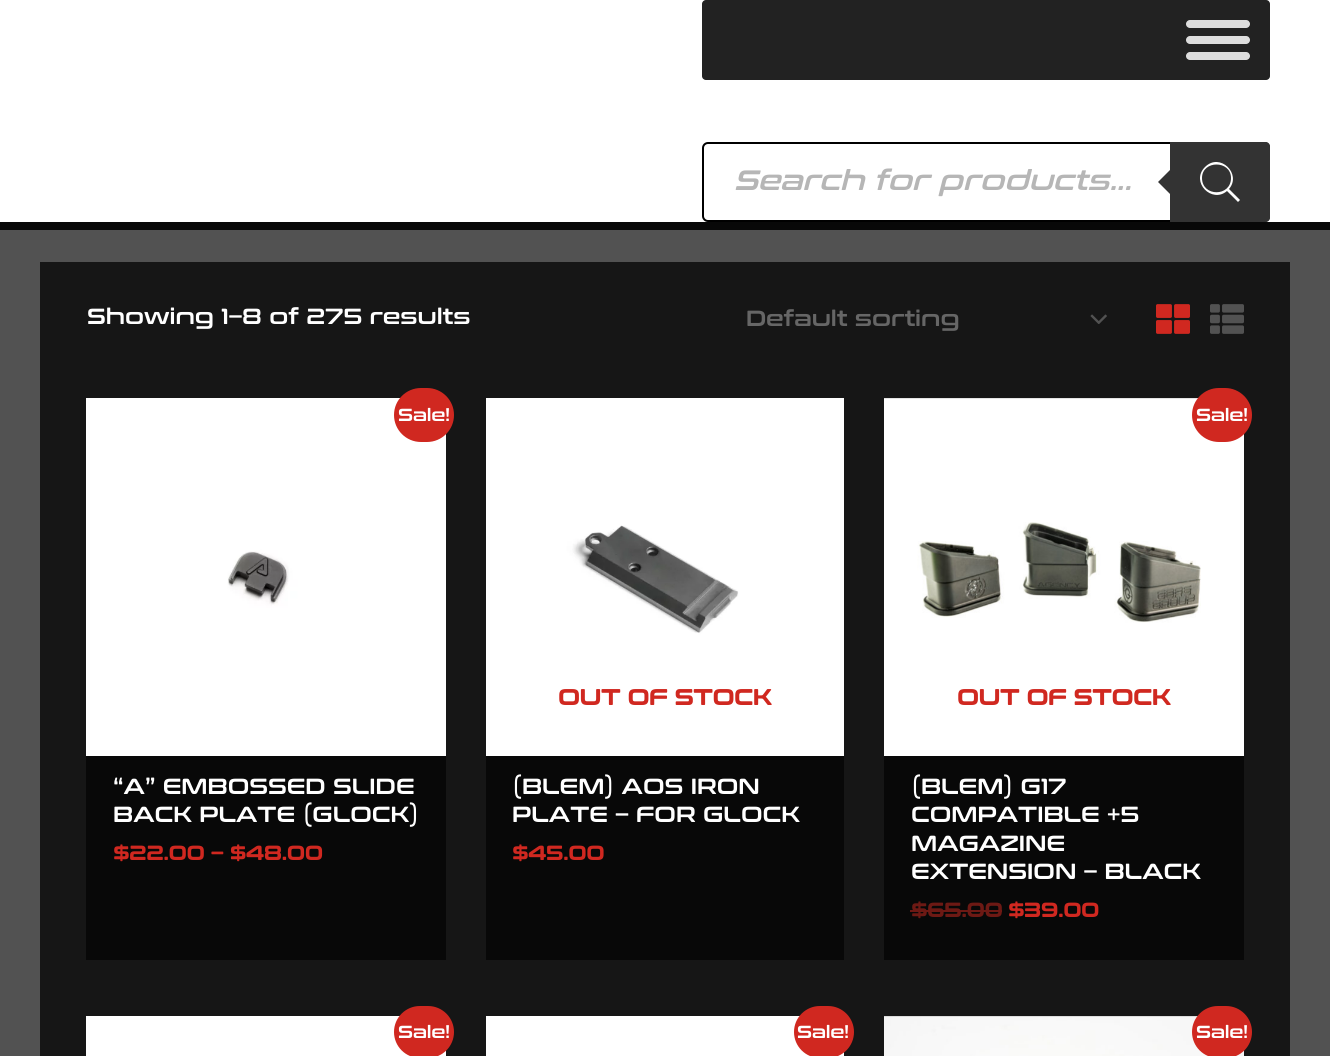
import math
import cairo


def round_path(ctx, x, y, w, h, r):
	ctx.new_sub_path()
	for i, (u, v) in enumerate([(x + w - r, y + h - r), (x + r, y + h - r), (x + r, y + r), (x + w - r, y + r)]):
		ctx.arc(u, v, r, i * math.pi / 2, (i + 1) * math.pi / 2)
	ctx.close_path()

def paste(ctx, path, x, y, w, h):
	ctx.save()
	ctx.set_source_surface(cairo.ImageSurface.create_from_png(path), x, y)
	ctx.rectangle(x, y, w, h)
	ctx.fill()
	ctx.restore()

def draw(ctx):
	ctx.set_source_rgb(0.322, 0.322, 0.322)
	ctx.paint()
	ctx.set_source_rgb(1, 1, 1)
	ctx.rectangle(0, 0, 1330, 222)
	ctx.fill()
	ctx.set_source_rgb(0.035, 0.035, 0.035)
	ctx.rectangle(0, 222, 1330, 8)
	ctx.fill()
	ctx.set_source_rgb(0.133, 0.133, 0.133)
	round_path(ctx, 702, 0, 568, 80, 4)
	ctx.fill()
	ctx.set_source_rgb(0.867, 0.867, 0.867)
	round_path(ctx, 1186, 20, 64, 8, 4)
	ctx.fill()
	round_path(ctx, 1186, 36, 64, 8, 4)
	ctx.fill()
	round_path(ctx, 1186, 52, 64, 8, 4)
	ctx.fill()
	round_path(ctx, 703, 143, 566, 78, 5)
	ctx.set_source_rgb(0, 0, 0)
	ctx.stroke()
	ctx.select_font_face('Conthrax', cairo.FONT_SLANT_ITALIC)
	ctx.set_font_size(28)
	ctx.set_source_rgb(0.714, 0.714, 0.714)
	ctx.move_to(734, 190)
	ctx.show_text('Search for products...')
	ctx.set_source_rgb(0.2, 0.2, 0.2)
	ctx.new_path()
	ctx.move_to(1170, 142)
	ctx.line_to(1266, 142)
	ctx.curve_to(1268, 142, 1270, 144, 1270, 146)
	ctx.line_to(1270, 218)
	ctx.curve_to(1270, 220, 1268, 222, 1266, 222)
	ctx.line_to(1170, 222)
	ctx.close_path()
	ctx.fill()
	ctx.new_path()
	ctx.move_to(1174, 166)
	ctx.line_to(1174, 198)
	ctx.line_to(1158, 182)
	ctx.close_path()
	ctx.fill()
	ctx.set_source_rgb(1, 1, 1)
	ctx.new_path()
	ctx.move_to(1240, 200)
	ctx.line_to(1229, 189)
	ctx.curve_to(1242, 174, 1220, 152, 1205, 167)
	ctx.curve_to(1190, 182, 1212, 204, 1227, 191)
	ctx.line_to(1238, 202)
	ctx.close_path()
	ctx.move_to(1202, 178)
	ctx.curve_to(1202, 160, 1231, 160, 1231, 178)
	ctx.curve_to(1231, 197, 1202, 197, 1202, 178)
	ctx.close_path()
	ctx.fill()
	ctx.set_source_rgb(0.086, 0.086, 0.086)
	ctx.rectangle(40, 262, 1250, 794)
	ctx.fill()
	ctx.select_font_face('Conthrax')
	ctx.set_font_size(21.9)
	ctx.set_source_rgb(1, 1, 1)
	ctx.move_to(87, 324)
	ctx.show_text('Showing 1–8 of 275 results')
	paste(ctx, 'media/1.png', 1090, 314, 17, 10)
	ctx.set_source_rgb(0.4, 0.4, 0.4)
	ctx.move_to(746, 326)
	ctx.show_text('Default sorting')
	paste(ctx, 'media/2.png', 1156, 304, 34, 30)
	paste(ctx, 'media/3.png', 1210, 304, 34, 30)
	ctx.set_source_rgb(0.035, 0.035, 0.035)
	ctx.rectangle(86, 756, 360, 204)
	ctx.fill()
	paste(ctx, 'media/4.png', 86, 398, 360, 358)
	ctx.set_source_rgb(0.816, 0.157, 0.125)
	round_path(ctx, 394, 388, 60, 54, 27)
	ctx.fill()
	ctx.set_font_size(17.5)
	ctx.set_source_rgb(1, 1, 1)
	ctx.move_to(398, 421)
	ctx.show_text('Sale!')
	ctx.set_font_size(21.9)
	ctx.move_to(113, 794)
	ctx.show_text('“A” EMBOSSED SLIDE')
	ctx.move_to(113, 822)
	ctx.show_text('BACK PLATE (GLOCK)')
	ctx.select_font_face('Conthrax', cairo.FONT_SLANT_NORMAL, cairo.FONT_WEIGHT_BOLD)
	ctx.set_font_size(19.75)
	ctx.set_source_rgb(0.816, 0.157, 0.125)
	ctx.move_to(113, 860)
	ctx.show_text('$22.00 – $48.00')
	ctx.set_source_rgb(0.035, 0.035, 0.035)
	ctx.rectangle(486, 756, 358, 204)
	ctx.fill()
	paste(ctx, 'media/5.png', 486, 398, 358, 358)
	ctx.set_font_size(21.9)
	ctx.set_source_rgb(0.816, 0.157, 0.125)
	ctx.move_to(558, 705)
	ctx.show_text('OUT OF STOCK')
	ctx.select_font_face('Conthrax')
	ctx.set_source_rgb(1, 1, 1)
	ctx.move_to(512, 794)
	ctx.show_text('(BLEM) AOS IRON')
	ctx.move_to(512, 822)
	ctx.show_text('PLATE – FOR GLOCK')
	ctx.select_font_face('Conthrax', cairo.FONT_SLANT_NORMAL, cairo.FONT_WEIGHT_BOLD)
	ctx.set_font_size(19.75)
	ctx.set_source_rgb(0.816, 0.157, 0.125)
	ctx.move_to(512, 860)
	ctx.show_text('$45.00')
	ctx.set_source_rgb(0.035, 0.035, 0.035)
	ctx.rectangle(884, 398, 360, 562)
	ctx.fill()
	paste(ctx, 'media/6.png', 884, 398, 360, 358)
	ctx.set_source_rgb(0.816, 0.157, 0.125)
	round_path(ctx, 1192, 388, 60, 54, 27)
	ctx.fill()
	ctx.select_font_face('Conthrax')
	ctx.set_font_size(17.5)
	ctx.set_source_rgb(1, 1, 1)
	ctx.move_to(1196, 421)
	ctx.show_text('Sale!')
	ctx.select_font_face('Conthrax', cairo.FONT_SLANT_NORMAL, cairo.FONT_WEIGHT_BOLD)
	ctx.set_font_size(21.9)
	ctx.set_source_rgb(0.816, 0.157, 0.125)
	ctx.move_to(957, 705)
	ctx.show_text('OUT OF STOCK')
	ctx.select_font_face('Conthrax')
	ctx.set_source_rgb(1, 1, 1)
	for x, y, s in [
		(911, 794, '(BLEM) G17'),
		(911, 822, 'COMPATIBLE +5'),
		(911, 851, 'MAGAZINE'),
		(911, 879, 'EXTENSION – BLACK'),
	]:
		ctx.move_to(x, y)
		ctx.show_text(s)
	ctx.select_font_face('Conthrax', cairo.FONT_SLANT_NORMAL, cairo.FONT_WEIGHT_BOLD)
	ctx.set_font_size(19.75)
	ctx.set_source_rgb(0.427, 0.098, 0.082)
	ctx.move_to(911, 917)
	ctx.show_text('$65.00')
	ctx.rectangle(910, 910, 92, 2)
	ctx.fill()
	ctx.set_source_rgb(0.816, 0.157, 0.125)
	ctx.move_to(1008, 917)
	ctx.show_text('$39.00')
	ctx.set_source_rgb(1, 1, 1)
	ctx.rectangle(86, 1016, 360, 40)
	ctx.fill()
	ctx.set_source_rgb(0.816, 0.157, 0.125)
	round_path(ctx, 394, 1006, 60, 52, 26)
	ctx.fill()
	ctx.select_font_face('Conthrax')
	ctx.set_font_size(17.5)
	ctx.set_source_rgb(1, 1, 1)
	ctx.move_to(398, 1038)
	ctx.show_text('Sale!')
	ctx.rectangle(486, 1016, 358, 40)
	ctx.fill()
	ctx.set_source_rgb(0.816, 0.157, 0.125)
	round_path(ctx, 794, 1006, 60, 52, 26)
	ctx.fill()
	ctx.set_source_rgb(1, 1, 1)
	ctx.move_to(797, 1038)
	ctx.show_text('Sale!')
	paste(ctx, 'media/7.png', 884, 1016, 360, 40)
	ctx.set_source_rgb(0.816, 0.157, 0.125)
	round_path(ctx, 1192, 1006, 60, 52, 26)
	ctx.fill()
	ctx.set_source_rgb(1, 1, 1)
	ctx.move_to(1196, 1038)
	ctx.show_text('Sale!')


surface = cairo.ImageSurface(cairo.FORMAT_RGB24, 1330, 1056)
ctx = cairo.Context(surface)
options = cairo.FontOptions()
options.set_hint_metrics(cairo.HINT_METRICS_OFF)
options.set_hint_style(cairo.HINT_STYLE_NONE)
ctx.set_font_options(options)
ctx.set_miter_limit(4)
draw(ctx)
surface.write_to_png('image.png')
